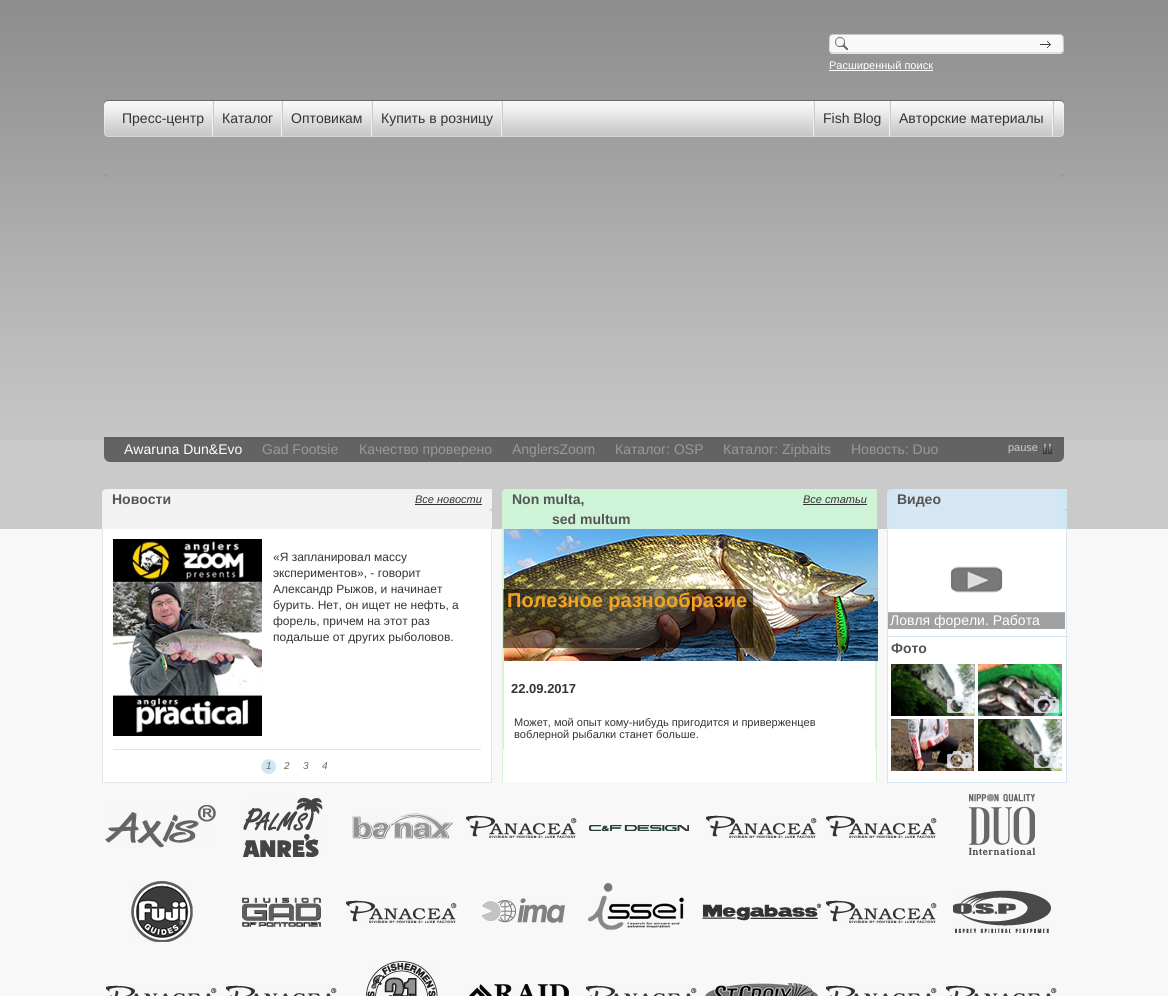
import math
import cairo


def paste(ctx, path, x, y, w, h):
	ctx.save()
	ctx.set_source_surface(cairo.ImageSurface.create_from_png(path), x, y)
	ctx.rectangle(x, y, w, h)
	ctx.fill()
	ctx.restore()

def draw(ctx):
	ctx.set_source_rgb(0.969, 0.969, 0.969)
	ctx.paint()
	ctx.set_source_rgb(0.792, 0.792, 0.792)
	ctx.rectangle(0, 440, 1168, 89)
	ctx.fill()
	paste(ctx, 'media/1.png', 0, 0, 1168, 440)
	paste(ctx, 'media/2.png', 829, 34, 235, 20)
	ctx.set_source_rgb(1, 1, 1)
	ctx.rectangle(829, 70, 104, 1)
	ctx.fill()
	ctx.select_font_face('Liberation Sans')
	ctx.set_font_size(11)
	ctx.move_to(829, 69)
	ctx.show_text('Расширенный поиск')
	paste(ctx, 'media/3.png', 104, 100, 960, 37)
	ctx.set_font_size(14)
	ctx.set_source_rgb(0.2, 0.2, 0.2)
	ctx.move_to(122, 123)
	ctx.show_text('Пресс-центр')
	ctx.set_source_rgb(0.8, 0.8, 0.8)
	ctx.rectangle(213, 101, 1, 36)
	ctx.fill()
	ctx.set_source_rgb(0.933, 0.933, 0.933)
	ctx.rectangle(212, 101, 1, 36)
	ctx.fill()
	ctx.set_source_rgb(0.2, 0.2, 0.2)
	ctx.move_to(222, 123)
	ctx.show_text('Каталог')
	ctx.set_source_rgb(0.8, 0.8, 0.8)
	ctx.rectangle(282, 101, 1, 36)
	ctx.fill()
	ctx.set_source_rgb(0.933, 0.933, 0.933)
	ctx.rectangle(281, 101, 1, 36)
	ctx.fill()
	ctx.set_source_rgb(0.2, 0.2, 0.2)
	ctx.move_to(291, 123)
	ctx.show_text('Оптовикам')
	ctx.set_source_rgb(0.8, 0.8, 0.8)
	ctx.rectangle(372, 101, 1, 36)
	ctx.fill()
	ctx.set_source_rgb(0.933, 0.933, 0.933)
	ctx.rectangle(371, 101, 1, 36)
	ctx.fill()
	ctx.set_source_rgb(0.2, 0.2, 0.2)
	ctx.move_to(381, 123)
	ctx.show_text('Купить в розницу')
	ctx.set_source_rgb(0.8, 0.8, 0.8)
	ctx.rectangle(502, 101, 1, 36)
	ctx.fill()
	ctx.set_source_rgb(0.933, 0.933, 0.933)
	ctx.rectangle(501, 101, 1, 36)
	ctx.fill()
	ctx.set_source_rgb(0.8, 0.8, 0.8)
	ctx.rectangle(814, 101, 1, 36)
	ctx.fill()
	ctx.set_source_rgb(0.933, 0.933, 0.933)
	ctx.rectangle(813, 101, 1, 36)
	ctx.fill()
	ctx.set_source_rgb(0.2, 0.2, 0.2)
	ctx.move_to(823, 123)
	ctx.show_text('Fish Blog')
	ctx.set_source_rgb(0.8, 0.8, 0.8)
	ctx.rectangle(890, 101, 1, 36)
	ctx.fill()
	ctx.set_source_rgb(0.933, 0.933, 0.933)
	ctx.rectangle(889, 101, 1, 36)
	ctx.fill()
	ctx.set_source_rgb(0.2, 0.2, 0.2)
	ctx.move_to(899, 123)
	ctx.show_text('Авторские материалы')
	ctx.set_source_rgb(0.8, 0.8, 0.8)
	ctx.rectangle(1053, 101, 1, 36)
	ctx.fill()
	ctx.set_source_rgb(0.933, 0.933, 0.933)
	ctx.rectangle(1052, 101, 1, 36)
	ctx.fill()
	paste(ctx, 'media/4.png', 104, 174, 4, 4)
	paste(ctx, 'media/5.png', 1060, 174, 4, 4)
	ctx.set_source_rgba(0, 0, 0, 0.51)
	ctx.rectangle(104, 437, 960, 25)
	ctx.fill()
	paste(ctx, 'media/6.png', 104, 456, 6, 6)
	paste(ctx, 'media/7.png', 1058, 456, 6, 6)
	ctx.set_source_rgb(1, 1, 1)
	ctx.move_to(124, 454)
	ctx.show_text('Awaruna Dun&Evo')
	ctx.set_source_rgb(0.6, 0.6, 0.6)
	for x, y, s in [
		(262, 454, 'Gad Footsie'),
		(359, 454, 'Качество проверено'),
		(512, 454, 'AnglersZoom'),
		(615, 454, 'Каталог: OSP'),
		(723, 454, 'Каталог: Zipbaits'),
		(851, 454, 'Новость: Duo'),
	]:
		ctx.move_to(x, y)
		ctx.show_text(s)
	ctx.set_font_size(11)
	ctx.set_source_rgb(0.8, 0.8, 0.8)
	ctx.move_to(1008, 451)
	ctx.show_text('pause')
	paste(ctx, 'media/8.png', 1043, 443, 9, 11)
	paste(ctx, 'media/9.png', 102, 489, 10, 40)
	ctx.set_source_rgb(0.949, 0.949, 0.949)
	ctx.rectangle(112, 489, 380, 40)
	ctx.fill()
	paste(ctx, 'media/10.png', 488, 509, 4, 3)
	ctx.select_font_face('Liberation Sans', cairo.FONT_SLANT_NORMAL, cairo.FONT_WEIGHT_BOLD)
	ctx.set_font_size(14)
	ctx.set_source_rgb(0.333, 0.333, 0.333)
	ctx.move_to(112, 504)
	ctx.show_text('Новости')
	ctx.select_font_face('Liberation Sans', cairo.FONT_SLANT_ITALIC)
	ctx.set_font_size(11)
	ctx.set_source_rgb(0.2, 0.2, 0.2)
	ctx.move_to(415, 503)
	ctx.show_text('Все новости')
	ctx.rectangle(415, 504, 67, 1)
	ctx.fill()
	ctx.set_source_rgb(1, 1, 1)
	ctx.rectangle(103, 529, 388, 253)
	ctx.fill()
	paste(ctx, 'media/11.png', 113, 539, 149, 197)
	ctx.select_font_face('Liberation Sans')
	ctx.set_font_size(12)
	ctx.set_source_rgb(0.2, 0.2, 0.2)
	for x, y, s in [
		(273, 561, '«Я запланировал массу'),
		(273, 577, 'экспериментов», - говорит'),
		(273, 593, 'Александр Рыжов, и начинает'),
		(273, 609, 'бурить. Нет, он ищет не нефть, а'),
		(273, 625, 'форель, причем на этот раз'),
		(273, 641, 'подальше от других рыболовов.'),
	]:
		ctx.move_to(x, y)
		ctx.show_text(s)
	ctx.set_source_rgb(0.898, 0.898, 0.898)
	ctx.rectangle(491, 529, 1, 254)
	ctx.rectangle(102, 782, 390, 1)
	ctx.rectangle(102, 529, 1, 254)
	ctx.fill()
	ctx.set_source_rgb(0.839, 0.902, 0.949)
	ctx.rectangle(113, 749, 368, 1)
	ctx.fill()
	paste(ctx, 'media/12.png', 261, 759, 15, 15)
	ctx.select_font_face('Liberation Sans', cairo.FONT_SLANT_ITALIC)
	ctx.set_font_size(10)
	ctx.set_source_rgb(0.4, 0.4, 0.4)
	for x, y, s in [
		(266, 769, '1'),
		(284, 769, '2'),
		(303, 769, '3'),
		(322, 769, '4'),
	]:
		ctx.move_to(x, y)
		ctx.show_text(s)
	paste(ctx, 'media/13.png', 502, 489, 10, 40)
	ctx.set_source_rgb(0.808, 0.953, 0.839)
	ctx.rectangle(512, 489, 365, 40)
	ctx.fill()
	ctx.select_font_face('Liberation Sans', cairo.FONT_SLANT_NORMAL, cairo.FONT_WEIGHT_BOLD)
	ctx.set_font_size(14)
	ctx.set_source_rgb(0.333, 0.333, 0.333)
	ctx.move_to(512, 504)
	ctx.show_text('Non multa,')
	ctx.move_to(552, 524)
	ctx.show_text('sed multum')
	ctx.select_font_face('Liberation Sans', cairo.FONT_SLANT_ITALIC)
	ctx.set_font_size(11)
	ctx.set_source_rgb(0.2, 0.2, 0.2)
	ctx.move_to(803, 503)
	ctx.show_text('Все статьи')
	ctx.rectangle(803, 504, 64, 1)
	ctx.fill()
	ctx.set_source_rgb(1, 1, 1)
	ctx.rectangle(503, 661, 373, 121)
	ctx.fill()
	ctx.set_source_rgb(0.851, 0.949, 0.847)
	ctx.rectangle(876, 661, 1, 121)
	ctx.rectangle(502, 529, 1, 253)
	ctx.rectangle(503, 529, 1, 221)
	ctx.fill()
	paste(ctx, 'media/14.png', 504, 529, 374, 132)
	ctx.set_source_rgba(0, 0, 0, 0.5)
	ctx.rectangle(503, 589, 250, 59)
	ctx.fill()
	ctx.select_font_face('Liberation Sans', cairo.FONT_SLANT_NORMAL, cairo.FONT_WEIGHT_BOLD)
	ctx.set_font_size(20)
	ctx.set_source_rgb(0.957, 0.643, 0.118)
	ctx.move_to(507, 607)
	ctx.show_text('Полезное разнообразие')
	ctx.set_source_rgb(0.851, 0.949, 0.847)
	ctx.rectangle(875, 661, 1, 89)
	ctx.fill()
	ctx.set_font_size(13)
	ctx.set_source_rgb(0.2, 0.2, 0.2)
	ctx.move_to(511, 693)
	ctx.show_text('22.09.2017')
	ctx.select_font_face('Liberation Sans')
	ctx.set_font_size(11)
	ctx.move_to(514, 726)
	ctx.show_text('Может, мой опыт кому-нибудь пригодится и приверженцев')
	ctx.move_to(514, 738)
	ctx.show_text('воблерной рыбалки станет больше.')
	paste(ctx, 'media/15.png', 887, 489, 10, 40)
	ctx.set_source_rgb(0.839, 0.902, 0.949)
	ctx.rectangle(897, 489, 160, 40)
	ctx.fill()
	paste(ctx, 'media/16.png', 1057, 489, 10, 40)
	ctx.select_font_face('Liberation Sans', cairo.FONT_SLANT_NORMAL, cairo.FONT_WEIGHT_BOLD)
	ctx.set_font_size(14)
	ctx.set_source_rgb(0.333, 0.333, 0.333)
	ctx.move_to(897, 504)
	ctx.show_text('Видео')
	ctx.set_source_rgb(1, 1, 1)
	ctx.rectangle(888, 529, 178, 253)
	ctx.fill()
	ctx.set_source_rgb(0.839, 0.902, 0.949)
	ctx.rectangle(1066, 529, 1, 254)
	ctx.rectangle(887, 782, 180, 1)
	ctx.rectangle(887, 529, 1, 254)
	ctx.fill()
	paste(ctx, 'media/17.png', 888, 566, 177, 63)
	ctx.select_font_face('Liberation Sans')
	ctx.set_source_rgb(1, 1, 1)
	ctx.move_to(890, 625)
	ctx.show_text('Ловля форели. Работа')
	ctx.set_source_rgb(0.839, 0.902, 0.949)
	ctx.rectangle(888, 636, 180, 1)
	ctx.fill()
	ctx.select_font_face('Liberation Sans', cairo.FONT_SLANT_NORMAL, cairo.FONT_WEIGHT_BOLD)
	ctx.set_source_rgb(0.333, 0.333, 0.333)
	ctx.move_to(891, 653)
	ctx.show_text('Фото')
	paste(ctx, 'media/18.png', 891, 664, 84, 52)
	paste(ctx, 'media/19.png', 947, 696, 25, 17)
	paste(ctx, 'media/20.png', 978, 664, 84, 52)
	paste(ctx, 'media/21.png', 1034, 696, 25, 17)
	paste(ctx, 'media/22.png', 891, 719, 83, 52)
	paste(ctx, 'media/23.png', 947, 751, 25, 17)
	paste(ctx, 'media/18.png', 978, 719, 84, 52)
	paste(ctx, 'media/19.png', 1034, 751, 25, 17)
	paste(ctx, 'media/24.png', 105, 805, 111, 43)
	paste(ctx, 'media/25.png', 243, 797, 80, 60)
	paste(ctx, 'media/26.png', 352, 813, 101, 26)
	paste(ctx, 'media/27.png', 466, 815, 111, 23)
	paste(ctx, 'media/28.png', 589, 825, 100, 6)
	paste(ctx, 'media/27.png', 706, 815, 111, 23)
	paste(ctx, 'media/27.png', 826, 815, 111, 23)
	paste(ctx, 'media/29.png', 969, 794, 66, 61)
	paste(ctx, 'media/30.png', 131, 881, 62, 61)
	paste(ctx, 'media/31.png', 242, 897, 79, 30)
	paste(ctx, 'media/27.png', 346, 900, 111, 23)
	paste(ctx, 'media/32.png', 480, 898, 85, 25)
	paste(ctx, 'media/33.png', 588, 883, 96, 47)
	paste(ctx, 'media/34.png', 702, 903, 119, 18)
	paste(ctx, 'media/27.png', 826, 900, 111, 23)
	paste(ctx, 'media/35.png', 953, 890, 98, 43)
	paste(ctx, 'media/36.png', 106, 985, 111, 11)
	paste(ctx, 'media/36.png', 226, 985, 111, 11)
	paste(ctx, 'media/37.png', 366, 961, 72, 35)
	paste(ctx, 'media/38.png', 469, 984, 100, 12)
	paste(ctx, 'media/36.png', 586, 985, 111, 11)
	paste(ctx, 'media/39.png', 705, 983, 113, 13)
	paste(ctx, 'media/36.png', 826, 985, 111, 11)
	paste(ctx, 'media/36.png', 946, 985, 111, 11)


surface = cairo.ImageSurface(cairo.FORMAT_RGB24, 1168, 996)
ctx = cairo.Context(surface)
options = cairo.FontOptions()
options.set_hint_metrics(cairo.HINT_METRICS_OFF)
options.set_hint_style(cairo.HINT_STYLE_NONE)
ctx.set_font_options(options)
ctx.set_miter_limit(4)
draw(ctx)
surface.write_to_png('image.png')
